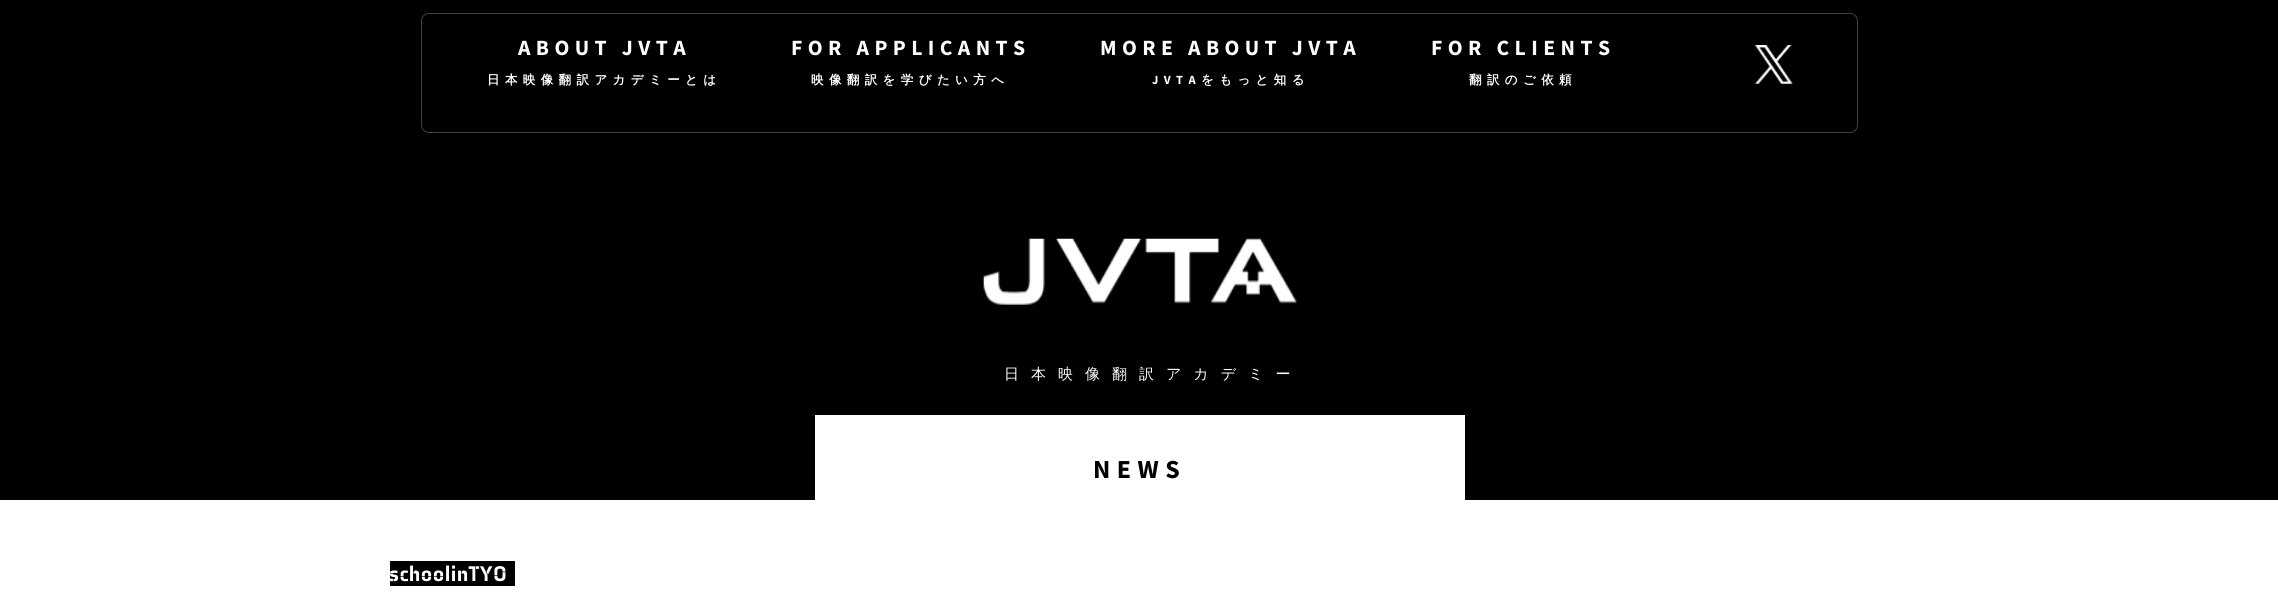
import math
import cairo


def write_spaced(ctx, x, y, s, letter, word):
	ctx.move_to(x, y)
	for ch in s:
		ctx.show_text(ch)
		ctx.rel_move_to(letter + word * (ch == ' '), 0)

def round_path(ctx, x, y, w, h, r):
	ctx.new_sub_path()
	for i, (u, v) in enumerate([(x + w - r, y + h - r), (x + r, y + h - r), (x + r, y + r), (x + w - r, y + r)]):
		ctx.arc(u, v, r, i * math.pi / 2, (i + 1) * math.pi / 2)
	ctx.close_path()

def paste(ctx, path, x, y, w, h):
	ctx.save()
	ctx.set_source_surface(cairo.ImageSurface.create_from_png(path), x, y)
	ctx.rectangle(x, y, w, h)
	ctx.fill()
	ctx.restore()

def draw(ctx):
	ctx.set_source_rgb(0, 0, 0)
	ctx.paint()
	round_path(ctx, 421.5, 13.5, 1436, 119, 7.5)
	ctx.set_source_rgb(0.251, 0.251, 0.251)
	ctx.set_line_width(1)
	ctx.stroke()
	ctx.select_font_face('Source Sans Pro', cairo.FONT_SLANT_NORMAL, cairo.FONT_WEIGHT_BOLD)
	ctx.set_font_size(21.75)
	ctx.set_source_rgb(1, 1, 1)
	write_spaced(ctx, 518, 55, 'ABOUT JVTA', 5.4, 0)
	ctx.select_font_face('WenQuanYi Zen Hei', cairo.FONT_SLANT_NORMAL, cairo.FONT_WEIGHT_BOLD)
	ctx.set_font_size(12.5)
	write_spaced(ctx, 487, 84, '日本映像翻訳アカデミーとは', 5.4, 0)
	ctx.select_font_face('Source Sans Pro', cairo.FONT_SLANT_NORMAL, cairo.FONT_WEIGHT_BOLD)
	ctx.set_font_size(21.75)
	write_spaced(ctx, 791, 55, 'FOR APPLICANTS', 5.4, 0)
	ctx.select_font_face('WenQuanYi Zen Hei', cairo.FONT_SLANT_NORMAL, cairo.FONT_WEIGHT_BOLD)
	ctx.set_font_size(12.5)
	write_spaced(ctx, 811, 84, '映像翻訳を学びたい方へ', 5.4, 0)
	ctx.select_font_face('Source Sans Pro', cairo.FONT_SLANT_NORMAL, cairo.FONT_WEIGHT_BOLD)
	ctx.set_font_size(21.75)
	write_spaced(ctx, 1100, 55, 'MORE ABOUT JVTA', 5.4, 0)
	ctx.set_font_size(12.5)
	write_spaced(ctx, 1152, 84, 'JVTA', 5.4, 0)
	ctx.select_font_face('WenQuanYi Zen Hei', cairo.FONT_SLANT_NORMAL, cairo.FONT_WEIGHT_BOLD)
	write_spaced(ctx, 1201, 84, 'をもっと知る', 5.4, 0)
	ctx.select_font_face('Source Sans Pro', cairo.FONT_SLANT_NORMAL, cairo.FONT_WEIGHT_BOLD)
	ctx.set_font_size(21.75)
	write_spaced(ctx, 1431, 55, 'FOR CLIENTS', 5.4, 0)
	ctx.select_font_face('WenQuanYi Zen Hei', cairo.FONT_SLANT_NORMAL, cairo.FONT_WEIGHT_BOLD)
	ctx.set_font_size(12.5)
	write_spaced(ctx, 1469, 84, '翻訳のご依頼', 5.4, 0)
	paste(ctx, 'media/1.png', 1754, 45, 39, 39)
	paste(ctx, 'media/2.png', 983, 238, 314, 67)
	ctx.select_font_face('WenQuanYi Zen Hei Medium')
	ctx.set_font_size(15)
	write_spaced(ctx, 1004, 379, '日本映像翻訳アカデミー', 12, 0)
	ctx.rectangle(0, 500, 2278, 99)
	ctx.fill()
	ctx.rectangle(815, 415, 650, 85)
	ctx.fill()
	ctx.select_font_face('Source Sans Pro', cairo.FONT_SLANT_NORMAL, cairo.FONT_WEIGHT_BOLD)
	ctx.set_font_size(26)
	ctx.set_source_rgb(0, 0, 0)
	write_spaced(ctx, 1093, 478, 'NEWS', 6.5, 0)
	ctx.rectangle(390, 561, 125, 25)
	ctx.fill()
	ctx.select_font_face('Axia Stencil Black')
	ctx.set_font_size(21.75)
	ctx.set_source_rgb(1, 1, 1)
	write_spaced(ctx, 389, 581, 'schoolinTYO', 0.5, 0)


surface = cairo.ImageSurface(cairo.FORMAT_RGB24, 2278, 599)
ctx = cairo.Context(surface)
options = cairo.FontOptions()
options.set_hint_metrics(cairo.HINT_METRICS_OFF)
options.set_hint_style(cairo.HINT_STYLE_NONE)
ctx.set_font_options(options)
ctx.set_miter_limit(4)
draw(ctx)
surface.write_to_png('image.png')
